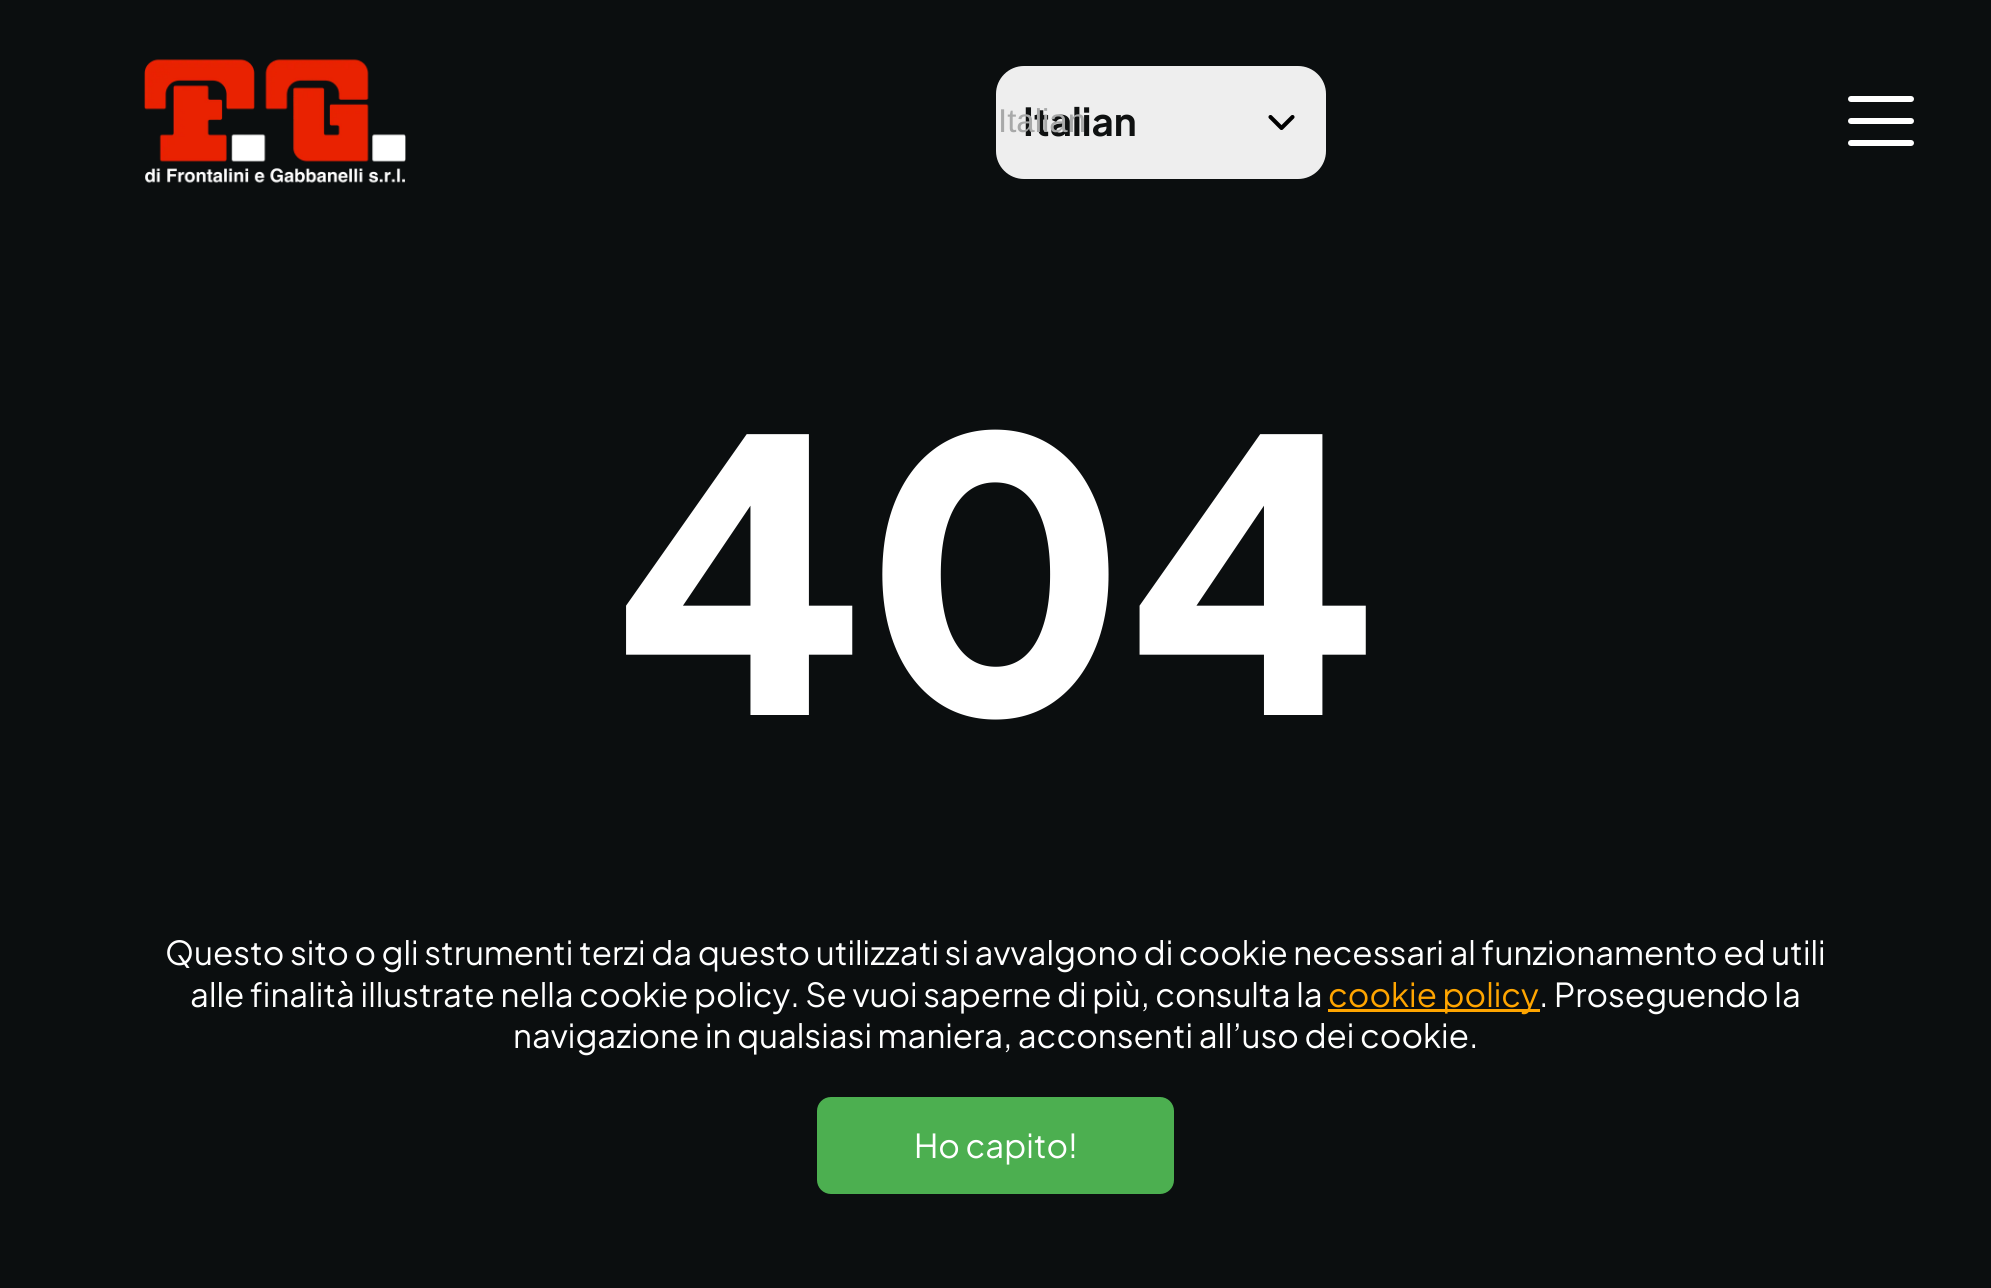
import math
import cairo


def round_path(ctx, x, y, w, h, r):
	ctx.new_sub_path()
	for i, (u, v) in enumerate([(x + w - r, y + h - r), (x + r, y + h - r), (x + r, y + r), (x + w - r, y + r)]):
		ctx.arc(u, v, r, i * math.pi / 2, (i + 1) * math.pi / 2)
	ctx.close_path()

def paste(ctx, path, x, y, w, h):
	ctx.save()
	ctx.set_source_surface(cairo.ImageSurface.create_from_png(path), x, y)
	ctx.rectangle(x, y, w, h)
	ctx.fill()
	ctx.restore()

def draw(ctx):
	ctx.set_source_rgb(0.043, 0.055, 0.059)
	ctx.paint()
	paste(ctx, 'media/1.png', 144, 59, 262, 124)
	ctx.set_source_rgb(0.933, 0.933, 0.933)
	round_path(ctx, 996, 66, 330, 113, 28)
	ctx.fill()
	ctx.select_font_face('Plus Jakarta Sans', cairo.FONT_SLANT_NORMAL, cairo.FONT_WEIGHT_BOLD)
	ctx.set_font_size(38.5)
	ctx.set_source_rgb(0.059, 0.067, 0.067)
	ctx.move_to(1023, 136)
	ctx.show_text('Italian')
	ctx.new_path()
	ctx.move_to(1270.5, 117)
	ctx.line_to(1281.5, 128)
	ctx.line_to(1292.5, 117)
	ctx.set_source_rgb(0, 0, 0)
	ctx.set_line_width(4.1)
	ctx.set_line_cap(cairo.LINE_CAP_ROUND)
	ctx.set_line_join(cairo.LINE_JOIN_ROUND)
	ctx.stroke()
	ctx.select_font_face('Liberation Sans')
	ctx.set_font_size(33)
	ctx.set_source_rgb(0.659, 0.663, 0.663)
	ctx.move_to(998, 132)
	ctx.show_text('Italian')
	ctx.set_source_rgb(1, 1, 1)
	round_path(ctx, 1848, 96, 66, 6, 3)
	ctx.fill()
	round_path(ctx, 1848, 118, 66, 6, 3)
	ctx.fill()
	round_path(ctx, 1848, 140, 66, 6, 3)
	ctx.fill()
	ctx.select_font_face('Plus Jakarta Sans ExtraBold')
	ctx.set_font_size(377)
	ctx.move_to(614, 715)
	ctx.show_text('404')
	ctx.select_font_face('Plus Jakarta Sans')
	ctx.set_font_size(33)
	ctx.move_to(165, 965)
	ctx.show_text('Questo sito o gli strumenti terzi da questo utilizzati si avvalgono di cookie necessari al funzionamento ed utili')
	ctx.move_to(190, 1007)
	ctx.show_text('alle finalità illustrate nella cookie policy. Se vuoi saperne di più, consulta la')
	ctx.set_source_rgb(1, 0.647, 0)
	ctx.rectangle(1328, 1009, 212, 3)
	ctx.fill()
	ctx.move_to(1328, 1007)
	ctx.show_text('cookie policy')
	ctx.set_source_rgb(1, 1, 1)
	ctx.move_to(1539, 1007)
	ctx.show_text('. Proseguendo la')
	ctx.move_to(513, 1048)
	ctx.show_text('navigazione in qualsiasi maniera, acconsenti all’uso dei cookie.')
	ctx.set_source_rgb(0.298, 0.686, 0.314)
	round_path(ctx, 817, 1097, 357, 97, 14)
	ctx.fill()
	ctx.set_source_rgb(1, 1, 1)
	ctx.move_to(914, 1158)
	ctx.show_text('Ho capito!')


surface = cairo.ImageSurface(cairo.FORMAT_RGB24, 1991, 1288)
ctx = cairo.Context(surface)
options = cairo.FontOptions()
options.set_hint_metrics(cairo.HINT_METRICS_OFF)
options.set_hint_style(cairo.HINT_STYLE_NONE)
ctx.set_font_options(options)
ctx.set_miter_limit(4)
draw(ctx)
surface.write_to_png('image.png')
